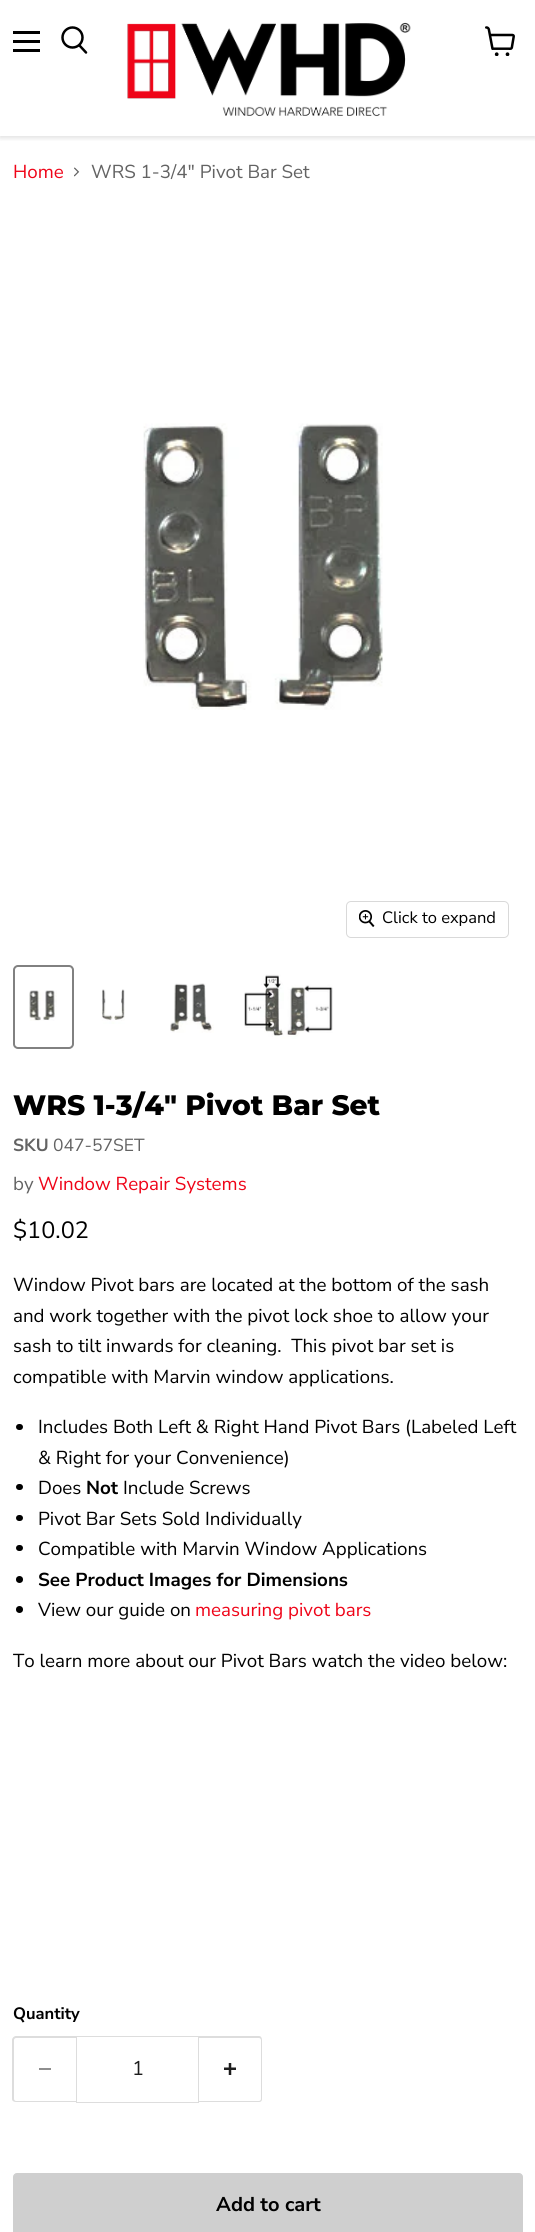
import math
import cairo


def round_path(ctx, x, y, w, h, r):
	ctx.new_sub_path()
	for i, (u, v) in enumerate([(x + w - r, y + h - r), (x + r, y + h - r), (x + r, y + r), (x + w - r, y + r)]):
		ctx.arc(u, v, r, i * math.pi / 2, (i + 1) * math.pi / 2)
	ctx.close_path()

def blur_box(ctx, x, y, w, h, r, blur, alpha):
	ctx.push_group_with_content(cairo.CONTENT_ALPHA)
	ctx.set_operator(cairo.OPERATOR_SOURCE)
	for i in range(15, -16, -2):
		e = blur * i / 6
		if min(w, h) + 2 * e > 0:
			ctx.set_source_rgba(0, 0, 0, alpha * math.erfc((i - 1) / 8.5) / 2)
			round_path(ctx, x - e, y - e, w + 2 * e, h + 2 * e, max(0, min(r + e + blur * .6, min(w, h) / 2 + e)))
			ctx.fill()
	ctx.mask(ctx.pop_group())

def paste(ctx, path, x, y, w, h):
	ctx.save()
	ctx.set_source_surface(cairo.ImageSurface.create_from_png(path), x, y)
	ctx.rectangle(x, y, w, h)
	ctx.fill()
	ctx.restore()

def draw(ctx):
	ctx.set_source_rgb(1, 1, 1)
	ctx.paint()
	ctx.save()
	ctx.rectangle(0, 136, 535, 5)
	ctx.clip()
	ctx.set_source_rgb(0.502, 0.502, 0.502)
	blur_box(ctx, 0, 1, 535, 137, 0, 2.5, 0.25)
	ctx.restore()
	ctx.set_source_rgb(0, 0, 0)
	ctx.rectangle(13, 31, 27, 3)
	ctx.rectangle(13, 40, 27, 3)
	ctx.rectangle(13, 49, 27, 3)
	ctx.fill()
	ctx.new_path()
	ctx.move_to(86, 52.5)
	ctx.line_to(79.5, 45.5)
	ctx.set_line_width(2.5)
	ctx.set_line_cap(cairo.LINE_CAP_ROUND)
	ctx.stroke()
	ctx.arc(72.5, 37.5, 10, 0, 2 * math.pi)
	ctx.set_line_cap(cairo.LINE_CAP_BUTT)
	ctx.stroke()
	paste(ctx, 'media/1.png', 127, 22, 284, 95)
	paste(ctx, 'media/2.png', 485, 26, 30, 30)
	ctx.select_font_face('Nunito Sans')
	ctx.set_font_size(18.75)
	ctx.set_source_rgb(0.937, 0.016, 0.094)
	ctx.move_to(13, 178)
	ctx.show_text('Home')
	paste(ctx, 'media/3.png', 74, 167, 6, 10)
	ctx.set_source_rgb(0.388, 0.388, 0.388)
	ctx.move_to(91, 178)
	ctx.show_text('WRS 1-3/4" Pivot Bar Set')
	paste(ctx, 'media/4.png', 143, 423, 240, 287)
	round_path(ctx, 346.5, 901.5, 162, 36, 4.5)
	ctx.set_source_rgb(0.851, 0.851, 0.851)
	ctx.set_line_width(1)
	ctx.stroke()
	paste(ctx, 'media/5.png', 359, 910, 16, 17)
	ctx.set_font_size(16.5)
	ctx.set_source_rgb(0, 0, 0)
	ctx.move_to(382, 923)
	ctx.show_text('Click to expand')
	round_path(ctx, 14, 966, 59, 82, 4)
	ctx.set_source_rgb(0.506, 0.506, 0.506)
	ctx.set_line_width(2)
	ctx.stroke()
	paste(ctx, 'media/6.png', 29, 990, 28, 31)
	paste(ctx, 'media/7.png', 101, 989, 24, 35)
	paste(ctx, 'media/8.png', 170, 983, 44, 50)
	paste(ctx, 'media/9.png', 244, 974, 89, 65)
	ctx.select_font_face('Montserrat ExtraBold')
	ctx.set_font_size(28.1)
	ctx.set_source_rgb(0, 0, 0)
	ctx.move_to(13, 1115)
	ctx.show_text('WRS 1-3/4" Pivot Bar Set')
	ctx.select_font_face('Nunito Sans', cairo.FONT_SLANT_NORMAL, cairo.FONT_WEIGHT_BOLD)
	ctx.set_font_size(17.5)
	ctx.set_source_rgb(0.388, 0.388, 0.388)
	ctx.move_to(13, 1151)
	ctx.show_text('SKU')
	ctx.select_font_face('Nunito Sans')
	ctx.move_to(53, 1151)
	ctx.show_text('047-57SET')
	ctx.set_font_size(18.75)
	ctx.move_to(13, 1190)
	ctx.show_text('by')
	ctx.set_source_rgb(0.937, 0.016, 0.094)
	ctx.move_to(38, 1190)
	ctx.show_text('Window Repair Systems')
	ctx.set_font_size(23.5)
	ctx.set_source_rgb(0, 0, 0)
	ctx.move_to(13, 1238)
	ctx.show_text('$10.02')
	ctx.set_font_size(18.75)
	for x, y, s in [
		(13, 1291, 'Window Pivot bars are located at the bottom of the sash'),
		(13, 1322, 'and work together with the pivot lock shoe to allow your'),
		(13, 1352, 'sash to tilt inwards for cleaning.  This pivot bar set is'),
		(13, 1383, 'compatible with Marvin window applications.'),
	]:
		ctx.move_to(x, y)
		ctx.show_text(s)
	round_path(ctx, 16, 1424, 7, 6, 3)
	ctx.fill()
	ctx.move_to(38, 1433)
	ctx.show_text('Includes Both Left & Right Hand Pivot Bars (Labeled Left')
	ctx.move_to(38, 1464)
	ctx.show_text('& Right for your Convenience)')
	round_path(ctx, 16, 1484, 7, 6, 3)
	ctx.fill()
	ctx.move_to(38, 1494)
	ctx.show_text('Does')
	ctx.select_font_face('Nunito Sans', cairo.FONT_SLANT_NORMAL, cairo.FONT_WEIGHT_BOLD)
	ctx.move_to(86, 1494)
	ctx.show_text('Not')
	ctx.select_font_face('Nunito Sans')
	ctx.move_to(123, 1494)
	ctx.show_text('Include Screws')
	round_path(ctx, 16, 1515, 7, 6, 3)
	ctx.fill()
	ctx.move_to(38, 1525)
	ctx.show_text('Pivot Bar Sets Sold Individually')
	round_path(ctx, 16, 1545, 7, 6, 3)
	ctx.fill()
	ctx.move_to(38, 1555)
	ctx.show_text('Compatible with Marvin Window Applications')
	ctx.new_path()
	ctx.arc(19.5, 1579.5, 3.5, 0, 2 * math.pi)
	ctx.fill()
	ctx.select_font_face('Nunito Sans', cairo.FONT_SLANT_NORMAL, cairo.FONT_WEIGHT_BOLD)
	ctx.move_to(38, 1586)
	ctx.show_text('See Product Images for Dimensions')
	ctx.new_path()
	ctx.arc(19.5, 1609.5, 3.5, 0, 2 * math.pi)
	ctx.fill()
	ctx.select_font_face('Nunito Sans')
	ctx.move_to(38, 1616)
	ctx.show_text('View our guide on')
	ctx.set_source_rgb(0.937, 0.016, 0.094)
	ctx.move_to(195, 1616)
	ctx.show_text('measuring pivot bars')
	ctx.set_source_rgb(0, 0, 0)
	ctx.move_to(13, 1667)
	ctx.show_text('To learn more about our Pivot Bars watch the video below:')
	ctx.select_font_face('Nunito Sans', cairo.FONT_SLANT_NORMAL, cairo.FONT_WEIGHT_BOLD)
	ctx.set_font_size(16.5)
	ctx.move_to(13, 2019)
	ctx.show_text('Quantity')
	ctx.set_source_rgb(0.867, 0.867, 0.867)
	ctx.set_fill_rule(cairo.FILL_RULE_EVEN_ODD)
	ctx.new_path()
	ctx.move_to(16, 2036)
	ctx.line_to(76, 2036)
	ctx.line_to(76, 2102)
	ctx.line_to(16, 2102)
	ctx.curve_to(14, 2102, 12, 2101, 12, 2099)
	ctx.line_to(12, 2040)
	ctx.curve_to(12, 2038, 14, 2036, 16, 2036)
	ctx.close_path()
	ctx.move_to(16, 2038)
	ctx.line_to(76, 2038)
	ctx.line_to(76, 2101)
	ctx.line_to(16, 2101)
	ctx.curve_to(15, 2101, 14, 2100, 14, 2099)
	ctx.line_to(14, 2040)
	ctx.curve_to(14, 2039, 15, 2038, 16, 2038)
	ctx.close_path()
	ctx.fill()
	ctx.set_source_rgb(0.557, 0.557, 0.557)
	ctx.rectangle(39, 2068, 12, 2)
	ctx.fill()
	ctx.rectangle(76.5, 2036.5, 122, 66)
	ctx.set_source_rgb(0.867, 0.867, 0.867)
	ctx.set_line_width(1)
	ctx.stroke()
	ctx.select_font_face('Nunito Sans')
	ctx.set_font_size(20)
	ctx.set_source_rgb(0.114, 0.114, 0.114)
	ctx.move_to(132, 2075)
	ctx.show_text('1')
	ctx.set_source_rgb(0.867, 0.867, 0.867)
	ctx.new_path()
	ctx.move_to(199, 2036)
	ctx.line_to(259, 2036)
	ctx.curve_to(261, 2036, 262, 2038, 262, 2040)
	ctx.line_to(262, 2099)
	ctx.curve_to(262, 2101, 261, 2102, 259, 2102)
	ctx.line_to(199, 2102)
	ctx.close_path()
	ctx.move_to(199, 2038)
	ctx.line_to(259, 2038)
	ctx.curve_to(260, 2038, 261, 2039, 261, 2040)
	ctx.line_to(261, 2099)
	ctx.curve_to(261, 2100, 260, 2101, 259, 2101)
	ctx.line_to(199, 2101)
	ctx.close_path()
	ctx.fill()
	paste(ctx, 'media/10.png', 224, 2063, 12, 12)
	ctx.set_source_rgb(0.812, 0.812, 0.812)
	round_path(ctx, 13.5, 2173.5, 509, 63, 3.5)
	ctx.fill_preserve()
	ctx.stroke()
	ctx.select_font_face('Nunito Sans', cairo.FONT_SLANT_NORMAL, cairo.FONT_WEIGHT_BOLD)
	ctx.set_source_rgb(0, 0, 0)
	ctx.move_to(216, 2211)
	ctx.show_text('Add to cart')


surface = cairo.ImageSurface(cairo.FORMAT_RGB24, 535, 2232)
ctx = cairo.Context(surface)
options = cairo.FontOptions()
options.set_hint_metrics(cairo.HINT_METRICS_OFF)
options.set_hint_style(cairo.HINT_STYLE_NONE)
ctx.set_font_options(options)
ctx.set_miter_limit(4)
draw(ctx)
surface.write_to_png('image.png')
